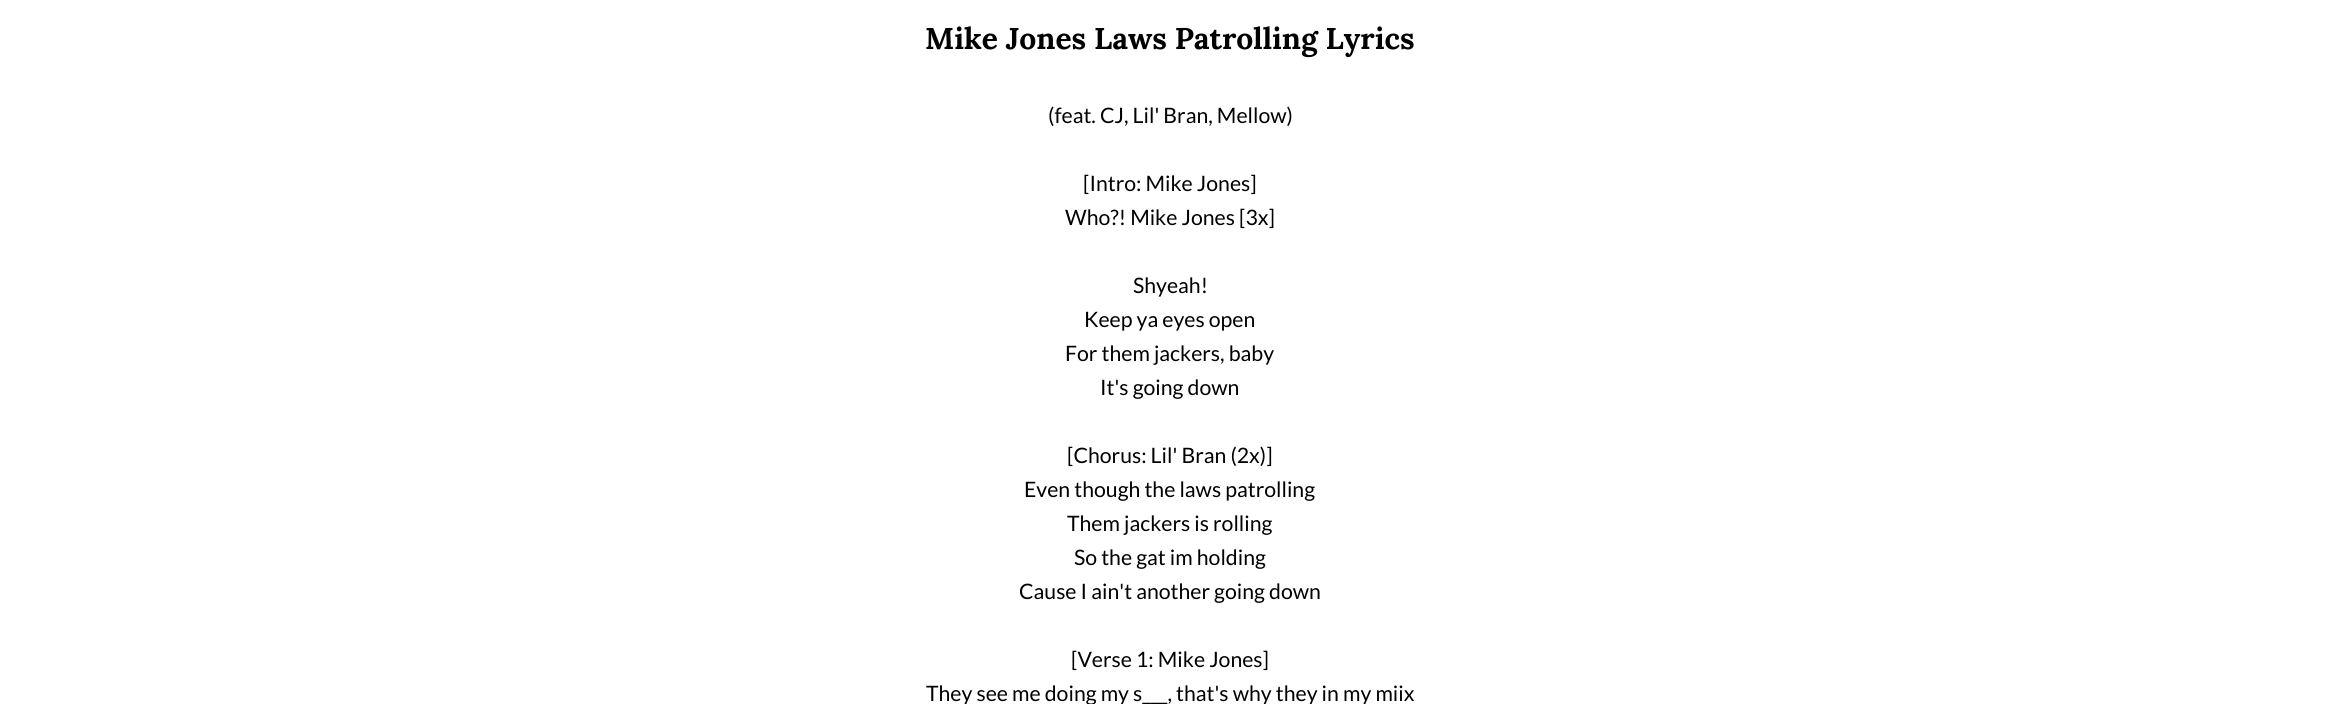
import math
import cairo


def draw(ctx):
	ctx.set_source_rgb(1, 1, 1)
	ctx.paint()
	ctx.select_font_face('Lora', cairo.FONT_SLANT_NORMAL, cairo.FONT_WEIGHT_BOLD)
	ctx.set_font_size(30)
	ctx.set_source_rgb(0, 0, 0)
	ctx.move_to(925, 49)
	ctx.show_text('Mike Jones Laws Patrolling Lyrics')
	ctx.select_font_face('Lato')
	ctx.set_font_size(21.25)
	for x, y, s in [
		(1048, 123, '(feat. CJ, Lil\' Bran, Mellow)'),
		(1083, 191, '[Intro: Mike Jones]'),
		(1065, 225, 'Who?! Mike Jones [3x]'),
		(1133, 293, 'Shyeah!'),
		(1084, 327, 'Keep ya eyes open'),
		(1065, 361, 'For them jackers, baby'),
		(1100, 395, 'It\'s going down'),
		(1067, 463, '[Chorus: Lil\' Bran (2x)]'),
		(1024, 497, 'Even though the laws patrolling'),
		(1067, 531, 'Them jackers is rolling'),
		(1074, 565, 'So the gat im holding'),
		(1019, 599, 'Cause I ain\'t another going down'),
		(1071, 667, '[Verse 1: Mike Jones]'),
		(926, 701, 'They see me doing my s___, that\'s why they in my miix'),
	]:
		ctx.move_to(x, y)
		ctx.show_text(s)


surface = cairo.ImageSurface(cairo.FORMAT_RGB24, 2340, 704)
ctx = cairo.Context(surface)
options = cairo.FontOptions()
options.set_hint_metrics(cairo.HINT_METRICS_OFF)
options.set_hint_style(cairo.HINT_STYLE_NONE)
ctx.set_font_options(options)
ctx.set_miter_limit(4)
draw(ctx)
surface.write_to_png('image.png')
